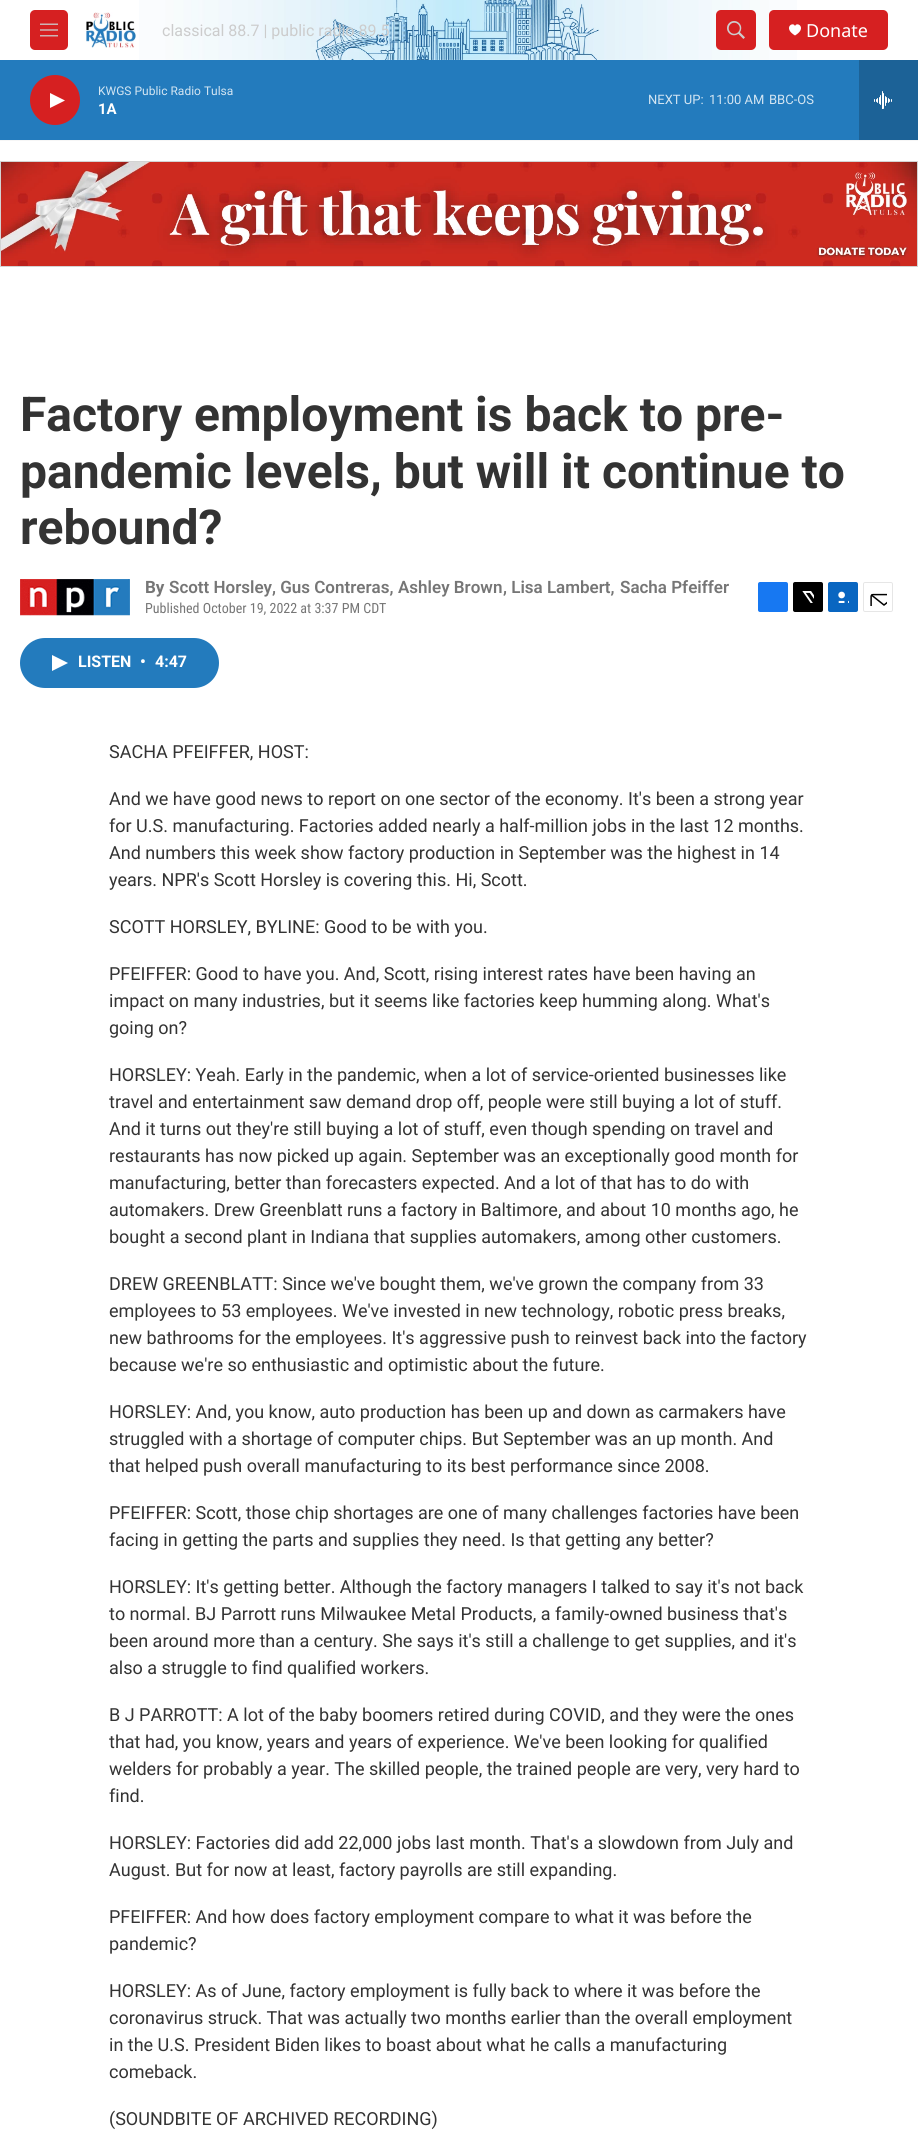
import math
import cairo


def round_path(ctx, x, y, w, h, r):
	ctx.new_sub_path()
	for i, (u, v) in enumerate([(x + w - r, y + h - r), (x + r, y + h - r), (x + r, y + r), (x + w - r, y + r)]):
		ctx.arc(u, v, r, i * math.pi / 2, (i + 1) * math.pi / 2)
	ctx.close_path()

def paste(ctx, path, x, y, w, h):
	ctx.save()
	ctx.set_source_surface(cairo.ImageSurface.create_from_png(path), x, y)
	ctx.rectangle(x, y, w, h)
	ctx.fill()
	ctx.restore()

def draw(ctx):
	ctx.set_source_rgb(1, 1, 1)
	ctx.paint()
	ctx.set_source_rgb(0.961, 0.961, 0.961)
	ctx.rectangle(0, 140, 918, 1)
	ctx.fill()
	paste(ctx, 'media/1.png', 139, 0, 658, 60)
	ctx.set_source_rgb(0.839, 0.125, 0.129)
	round_path(ctx, 30, 10, 38, 40, 5)
	ctx.fill()
	paste(ctx, 'media/2.png', 40, 23, 18, 14)
	paste(ctx, 'media/3.png', 86, 12, 50, 36)
	ctx.select_font_face('Roboto')
	ctx.set_font_size(16)
	ctx.set_source_rgb(0.8, 0.8, 0.8)
	ctx.move_to(162, 36)
	ctx.show_text('classical 88.7 | public radio 89.5')
	ctx.set_source_rgb(0.839, 0.125, 0.129)
	round_path(ctx, 716, 10, 40, 40, 5)
	ctx.fill()
	paste(ctx, 'media/4.png', 727, 21, 18, 18)
	round_path(ctx, 769, 10, 119, 40, 5)
	ctx.fill()
	ctx.set_source_rgb(1, 1, 1)
	ctx.new_path()
	ctx.move_to(795, 26)
	ctx.curve_to(793, 21, 782.5, 28, 795, 35.5)
	ctx.curve_to(807.5, 28, 797, 21, 795, 26)
	ctx.close_path()
	ctx.fill()
	ctx.select_font_face('Noto Sans')
	ctx.set_font_size(18)
	ctx.move_to(806, 37)
	ctx.show_text('Donate')
	ctx.set_source_rgb(0.137, 0.482, 0.741)
	ctx.rectangle(0, 60, 859, 80)
	ctx.fill()
	ctx.set_source_rgb(0.839, 0.125, 0.129)
	ctx.arc(55, 100, 25, 0, 2 * math.pi)
	ctx.fill()
	ctx.set_source_rgb(1, 1, 1)
	ctx.new_path()
	ctx.move_to(50, 93)
	ctx.line_to(65, 100.5)
	ctx.line_to(50, 108)
	ctx.close_path()
	ctx.fill()
	ctx.select_font_face('Roboto')
	ctx.set_font_size(12)
	ctx.set_source_rgb(0.827, 0.898, 0.949)
	ctx.move_to(98, 95)
	ctx.show_text('KWGS Public Radio Tulsa')
	ctx.select_font_face('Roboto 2', cairo.FONT_SLANT_NORMAL, cairo.FONT_WEIGHT_BOLD)
	ctx.set_font_size(15)
	ctx.set_source_rgb(1, 1, 1)
	ctx.move_to(98, 114)
	ctx.show_text('1A')
	ctx.select_font_face('Roboto')
	ctx.set_font_size(13)
	ctx.set_source_rgb(0.827, 0.898, 0.949)
	for x, y, s in [
		(648, 104, 'NEXT UP:'),
		(709, 104, '11:00 AM'),
		(769, 104, 'BBC-OS'),
	]:
		ctx.move_to(x, y)
		ctx.show_text(s)
	ctx.set_source_rgb(0.11, 0.384, 0.592)
	ctx.rectangle(859, 60, 59, 80)
	ctx.fill()
	paste(ctx, 'media/5.png', 874, 91, 18, 18)
	ctx.rectangle(0.5, 161.5, 917, 105)
	ctx.set_source_rgb(0.827, 0.827, 0.827)
	ctx.set_line_width(1)
	ctx.stroke()
	paste(ctx, 'media/6.png', 1, 162, 916, 104)
	ctx.select_font_face('Roboto', cairo.FONT_SLANT_NORMAL, cairo.FONT_WEIGHT_BOLD)
	ctx.set_font_size(48)
	ctx.set_source_rgb(0.2, 0.2, 0.2)
	for x, y, s in [
		(20, 431, 'Factory employment is back to pre-'),
		(20, 488, 'pandemic levels, but will it continue to'),
		(20, 544, 'rebound?'),
	]:
		ctx.move_to(x, y)
		ctx.show_text(s)
	paste(ctx, 'media/7.png', 20, 579, 110, 37)
	ctx.set_font_size(17)
	ctx.set_source_rgb(0.463, 0.463, 0.463)
	ctx.move_to(145, 593)
	ctx.show_text('By')
	ctx.select_font_face('Roboto SemiBold')
	for x, y, s in [
		(169, 593, 'Scott Horsley'),
		(272, 593, ', Gus Contreras,'),
		(398, 593, 'Ashley Brown'),
		(503, 593, ', Lisa Lambert,'),
		(620, 593, 'Sacha Pfeiffer'),
	]:
		ctx.move_to(x, y)
		ctx.show_text(s)
	ctx.select_font_face('Roboto Condensed')
	ctx.set_font_size(14)
	ctx.move_to(145, 613)
	ctx.show_text('Published October 19, 2022 at 3:37 PM CDT')
	ctx.set_source_rgb(0.09, 0.471, 0.949)
	round_path(ctx, 758, 582, 30, 30, 2)
	ctx.fill()
	ctx.set_source_rgb(0, 0, 0)
	round_path(ctx, 793, 582, 30, 30, 2)
	ctx.fill()
	paste(ctx, 'media/8.png', 802, 591, 12, 12)
	ctx.set_source_rgb(0.039, 0.4, 0.757)
	round_path(ctx, 828, 582, 30, 30, 2)
	ctx.fill()
	paste(ctx, 'media/9.png', 838, 591, 11, 12)
	round_path(ctx, 863.5, 582.5, 29, 29, 1.5)
	ctx.set_source_rgb(0.902, 0.902, 0.902)
	ctx.stroke()
	paste(ctx, 'media/10.png', 870, 593, 17, 13)
	ctx.set_source_rgb(0.137, 0.482, 0.741)
	round_path(ctx, 20, 638, 199, 50, 25)
	ctx.fill()
	ctx.set_source_rgb(1, 1, 1)
	ctx.new_path()
	ctx.move_to(52, 655)
	ctx.line_to(68, 663)
	ctx.line_to(52, 671)
	ctx.close_path()
	ctx.fill()
	ctx.select_font_face('Roboto 2', cairo.FONT_SLANT_NORMAL, cairo.FONT_WEIGHT_BOLD)
	ctx.set_font_size(16)
	for x, y, s in [
		(78, 667, 'LISTEN'),
		(140, 667, '•'),
		(155, 667, '4:47'),
	]:
		ctx.move_to(x, y)
		ctx.show_text(s)
	ctx.select_font_face('Roboto')
	ctx.set_font_size(18)
	ctx.set_source_rgb(0.2, 0.2, 0.2)
	for x, y, s in [
		(109, 758, 'SACHA PFEIFFER, HOST:'),
		(109, 805, 'And we have good news to report on one sector of the economy. It\'s been a strong year'),
		(109, 832, 'for U.S. manufacturing. Factories added nearly a half-million jobs in the last 12 months.'),
		(109, 859, 'And numbers this week show factory production in September was the highest in 14'),
		(109, 886, 'years. NPR\'s Scott Horsley is covering this. Hi, Scott.'),
		(109, 933, 'SCOTT HORSLEY, BYLINE: Good to be with you.'),
		(109, 980, 'PFEIFFER: Good to have you. And, Scott, rising interest rates have been having an'),
		(109, 1007, 'impact on many industries, but it seems like factories keep humming along. What\'s'),
		(109, 1034, 'going on?'),
		(109, 1081, 'HORSLEY: Yeah. Early in the pandemic, when a lot of service-oriented businesses like'),
		(109, 1108, 'travel and entertainment saw demand drop off, people were still buying a lot of stuff.'),
		(109, 1135, 'And it turns out they\'re still buying a lot of stuff, even though spending on travel and'),
		(109, 1162, 'restaurants has now picked up again. September was an exceptionally good month for'),
		(109, 1189, 'manufacturing, better than forecasters expected. And a lot of that has to do with'),
		(109, 1216, 'automakers. Drew Greenblatt runs a factory in Baltimore, and about 10 months ago, he'),
		(109, 1243, 'bought a second plant in Indiana that supplies automakers, among other customers.'),
		(109, 1290, 'DREW GREENBLATT: Since we\'ve bought them, we\'ve grown the company from 33'),
		(109, 1317, 'employees to 53 employees. We\'ve invested in new technology, robotic press breaks,'),
		(109, 1344, 'new bathrooms for the employees. It\'s aggressive push to reinvest back into the factory'),
		(109, 1371, 'because we\'re so enthusiastic and optimistic about the future.'),
		(109, 1418, 'HORSLEY: And, you know, auto production has been up and down as carmakers have'),
		(109, 1445, 'struggled with a shortage of computer chips. But September was an up month. And'),
		(109, 1472, 'that helped push overall manufacturing to its best performance since 2008.'),
		(109, 1519, 'PFEIFFER: Scott, those chip shortages are one of many challenges factories have been'),
		(109, 1546, 'facing in getting the parts and supplies they need. Is that getting any better?'),
		(109, 1593, 'HORSLEY: It\'s getting better. Although the factory managers I talked to say it\'s not back'),
		(109, 1620, 'to normal. BJ Parrott runs Milwaukee Metal Products, a family-owned business that\'s'),
		(109, 1647, 'been around more than a century. She says it\'s still a challenge to get supplies, and it\'s'),
		(109, 1674, 'also a struggle to find qualified workers.'),
		(109, 1721, 'B J PARROTT: A lot of the baby boomers retired during COVID, and they were the ones'),
		(109, 1748, 'that had, you know, years and years of experience. We\'ve been looking for qualified'),
		(109, 1775, 'welders for probably a year. The skilled people, the trained people are very, very hard to'),
		(109, 1802, 'find.'),
		(109, 1849, 'HORSLEY: Factories did add 22,000 jobs last month. That\'s a slowdown from July and'),
		(109, 1876, 'August. But for now at least, factory payrolls are still expanding.'),
		(109, 1923, 'PFEIFFER: And how does factory employment compare to what it was before the'),
		(109, 1950, 'pandemic?'),
		(109, 1997, 'HORSLEY: As of June, factory employment is fully back to where it was before the'),
		(109, 2024, 'coronavirus struck. That was actually two months earlier than the overall employment'),
		(109, 2051, 'in the U.S. President Biden likes to boast about what he calls a manufacturing'),
		(109, 2078, 'comeback.'),
		(109, 2125, '(SOUNDBITE OF ARCHIVED RECORDING)'),
	]:
		ctx.move_to(x, y)
		ctx.show_text(s)


surface = cairo.ImageSurface(cairo.FORMAT_RGB24, 918, 2155)
ctx = cairo.Context(surface)
options = cairo.FontOptions()
options.set_hint_metrics(cairo.HINT_METRICS_OFF)
options.set_hint_style(cairo.HINT_STYLE_NONE)
ctx.set_font_options(options)
ctx.set_miter_limit(4)
draw(ctx)
surface.write_to_png('image.png')
